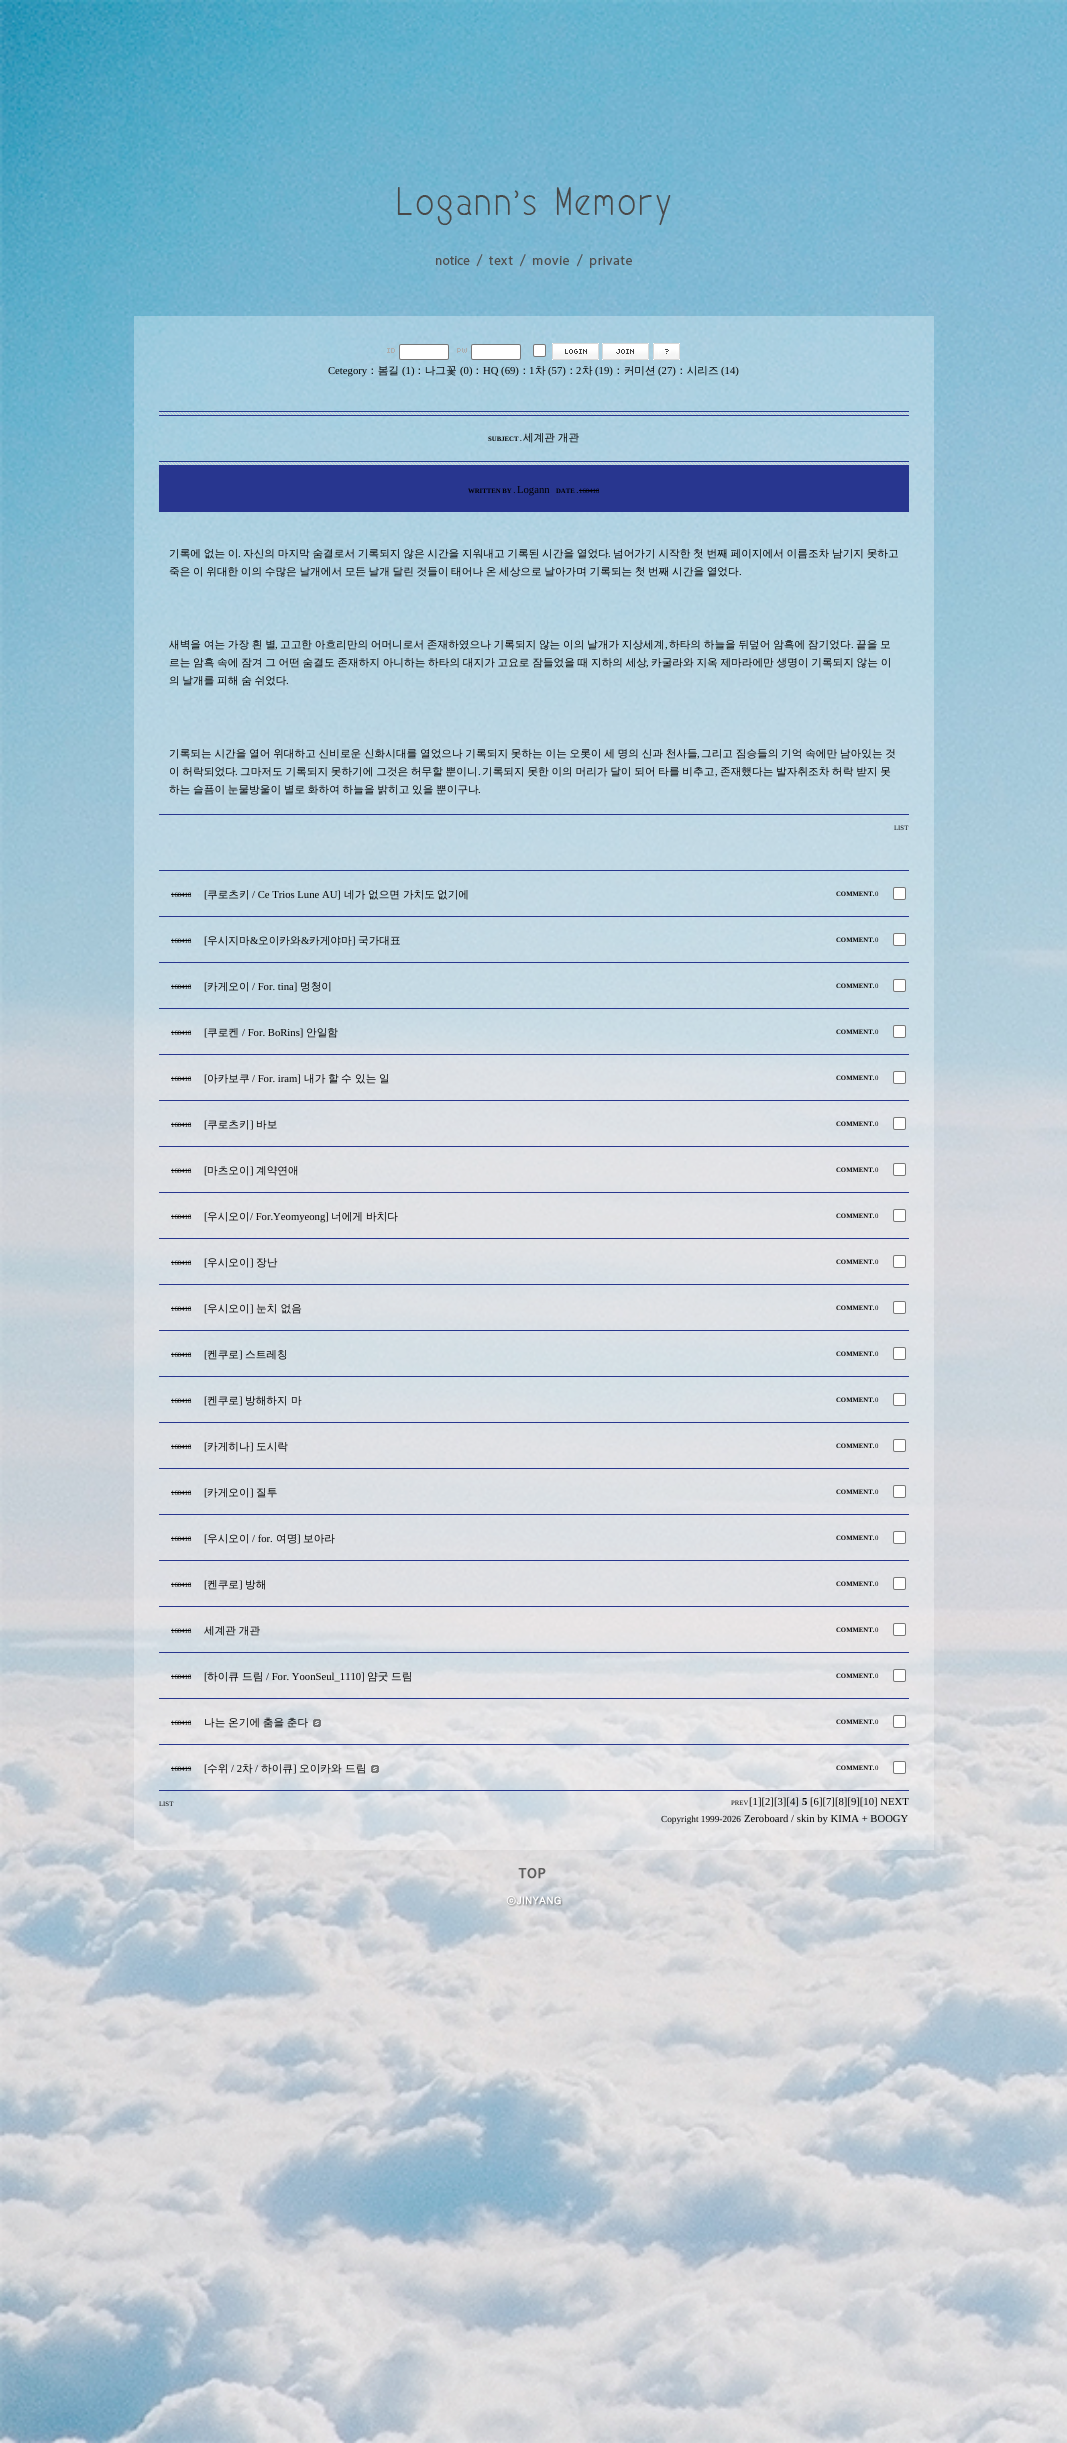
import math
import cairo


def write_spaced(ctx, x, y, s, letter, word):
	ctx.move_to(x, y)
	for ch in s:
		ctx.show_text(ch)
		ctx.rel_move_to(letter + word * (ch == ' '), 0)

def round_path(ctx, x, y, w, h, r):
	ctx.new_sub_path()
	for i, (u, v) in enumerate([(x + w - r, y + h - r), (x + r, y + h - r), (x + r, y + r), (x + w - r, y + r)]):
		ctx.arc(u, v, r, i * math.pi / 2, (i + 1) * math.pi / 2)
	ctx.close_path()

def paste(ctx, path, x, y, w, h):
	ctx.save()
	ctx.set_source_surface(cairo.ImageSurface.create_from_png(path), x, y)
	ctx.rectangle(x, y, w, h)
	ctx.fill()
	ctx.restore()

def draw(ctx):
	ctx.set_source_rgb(1, 1, 1)
	ctx.paint()
	paste(ctx, 'media/1.png', 0, 0, 1067, 2443)
	paste(ctx, 'media/2.png', 397, 187, 274, 81)
	ctx.set_source_rgba(1, 1, 1, 0.3)
	ctx.rectangle(134, 316, 800, 44)
	ctx.fill()
	paste(ctx, 'media/3.png', 387, 348, 8, 5)
	ctx.set_source_rgb(1, 1, 1)
	round_path(ctx, 399.5, 344.5, 49, 15, 1.5)
	ctx.fill_preserve()
	ctx.set_source_rgb(0.463, 0.463, 0.463)
	ctx.set_line_width(1)
	ctx.stroke()
	paste(ctx, 'media/4.png', 457, 348, 10, 5)
	ctx.set_source_rgb(1, 1, 1)
	round_path(ctx, 471.5, 344.5, 49, 15, 1.5)
	ctx.fill_preserve()
	ctx.set_source_rgb(0.463, 0.463, 0.463)
	ctx.stroke()
	ctx.set_source_rgb(1, 1, 1)
	round_path(ctx, 533.5, 344.5, 12, 12, 1.5)
	ctx.fill_preserve()
	ctx.set_source_rgb(0.463, 0.463, 0.463)
	ctx.stroke()
	paste(ctx, 'media/5.png', 552, 343, 47, 17)
	paste(ctx, 'media/6.png', 602, 343, 47, 17)
	paste(ctx, 'media/7.png', 653, 343, 27, 17)
	ctx.set_source_rgba(1, 1, 1, 0.3)
	ctx.rectangle(134, 360, 800, 1469)
	ctx.fill()
	ctx.select_font_face('Liberation Serif')
	ctx.set_font_size(10.67)
	ctx.set_source_rgb(0, 0, 0)
	ctx.move_to(328, 374)
	ctx.show_text('Cetegory')
	ctx.select_font_face('WenQuanYi Zen Hei Medium')
	ctx.move_to(367, 374)
	ctx.show_text('：봄길')
	ctx.select_font_face('Liberation Serif')
	ctx.move_to(402, 374)
	ctx.show_text('(1)')
	ctx.select_font_face('WenQuanYi Zen Hei Medium')
	ctx.move_to(414, 374)
	ctx.show_text('：나그꽃')
	ctx.select_font_face('Liberation Serif')
	ctx.move_to(460, 374)
	ctx.show_text('(0)')
	ctx.select_font_face('WenQuanYi Zen Hei Medium')
	ctx.move_to(472, 374)
	ctx.show_text('：')
	ctx.select_font_face('Liberation Serif')
	ctx.move_to(483, 374)
	ctx.show_text('HQ (69)')
	ctx.select_font_face('WenQuanYi Zen Hei Medium')
	ctx.move_to(519, 374)
	ctx.show_text('：')
	ctx.select_font_face('Liberation Serif')
	ctx.move_to(529, 374)
	ctx.show_text('1')
	ctx.select_font_face('WenQuanYi Zen Hei Medium')
	ctx.move_to(535, 374)
	ctx.show_text('차')
	ctx.select_font_face('Liberation Serif')
	ctx.move_to(548, 374)
	ctx.show_text('(57)')
	ctx.select_font_face('WenQuanYi Zen Hei Medium')
	ctx.move_to(566, 374)
	ctx.show_text('：')
	ctx.select_font_face('Liberation Serif')
	ctx.move_to(576, 374)
	ctx.show_text('2')
	ctx.select_font_face('WenQuanYi Zen Hei Medium')
	ctx.move_to(582, 374)
	ctx.show_text('차')
	ctx.select_font_face('Liberation Serif')
	ctx.move_to(595, 374)
	ctx.show_text('(19)')
	ctx.select_font_face('WenQuanYi Zen Hei Medium')
	ctx.move_to(613, 374)
	ctx.show_text('：커미션')
	ctx.select_font_face('Liberation Serif')
	ctx.move_to(658, 374)
	ctx.show_text('(27)')
	ctx.select_font_face('WenQuanYi Zen Hei Medium')
	ctx.move_to(676, 374)
	ctx.show_text('：시리즈')
	ctx.select_font_face('Liberation Serif')
	ctx.move_to(721, 374)
	ctx.show_text('(14)')
	ctx.set_source_rgb(0.157, 0.212, 0.561)
	ctx.rectangle(159, 411, 750, 1)
	ctx.fill()
	paste(ctx, 'media/8.png', 159, 412, 750, 3)
	ctx.rectangle(159, 415, 750, 1)
	ctx.fill()
	ctx.select_font_face('Liberation Serif', cairo.FONT_SLANT_NORMAL, cairo.FONT_WEIGHT_BOLD)
	ctx.set_font_size(6.75)
	ctx.set_source_rgb(0, 0, 0)
	ctx.move_to(488, 441)
	ctx.show_text('SUBJECT .')
	ctx.select_font_face('WenQuanYi Zen Hei Medium')
	ctx.set_font_size(10.67)
	write_spaced(ctx, 523, 441, '세계관 개관', 0, -0.5)
	ctx.set_source_rgb(0.157, 0.212, 0.561)
	ctx.rectangle(159, 461, 750, 1)
	ctx.fill()
	paste(ctx, 'media/9.png', 159, 462, 750, 3)
	ctx.rectangle(159, 465, 750, 47)
	ctx.fill()
	ctx.select_font_face('Liberation Serif', cairo.FONT_SLANT_NORMAL, cairo.FONT_WEIGHT_BOLD)
	ctx.set_font_size(6.75)
	ctx.set_source_rgb(0, 0, 0)
	ctx.move_to(468, 493)
	ctx.show_text('WRITTEN BY .')
	ctx.select_font_face('Liberation Serif')
	ctx.set_font_size(10.67)
	ctx.move_to(517, 493)
	ctx.show_text('Logann')
	ctx.select_font_face('Liberation Serif', cairo.FONT_SLANT_NORMAL, cairo.FONT_WEIGHT_BOLD)
	ctx.set_font_size(6.75)
	ctx.move_to(556, 493)
	ctx.show_text('DATE .')
	ctx.select_font_face('Liberation Serif')
	ctx.move_to(579, 493)
	ctx.show_text('160418')
	ctx.rectangle(579, 490, 20, 1)
	ctx.fill()
	ctx.select_font_face('WenQuanYi Zen Hei Medium')
	ctx.set_font_size(10.67)
	write_spaced(ctx, 169, 557, '기록에 없는 이', 0, -0.5)
	ctx.select_font_face('Liberation Serif')
	ctx.move_to(238, 557)
	ctx.show_text('.')
	ctx.select_font_face('WenQuanYi Zen Hei Medium')
	write_spaced(ctx, 243, 557, '자신의 마지막 숨결로서 기록되지 않은 시간을 지워내고 기록된 시간을 열었다', 0, -0.5)
	ctx.select_font_face('Liberation Serif')
	ctx.move_to(608, 557)
	ctx.show_text('.')
	ctx.select_font_face('WenQuanYi Zen Hei Medium')
	write_spaced(ctx, 613, 557, '넘어가기 시작한 첫 번째 페이지에서 이름조차 남기지 못하고', 0, -0.5)
	write_spaced(ctx, 169, 575, '죽은 이 위대한 이의 수많은 날개에서 모든 날개 달린 것들이 태어나 온 세상으로 날아가며 기록되는 첫 번째 시간을 열었다', 0, -0.6)
	ctx.select_font_face('Liberation Serif')
	ctx.move_to(739, 575)
	ctx.show_text('.')
	ctx.select_font_face('WenQuanYi Zen Hei Medium')
	write_spaced(ctx, 169, 648, '새벽을 여는 가장 흰 별', 0, -0.5)
	ctx.select_font_face('Liberation Serif')
	ctx.move_to(275, 648)
	ctx.show_text(',')
	ctx.select_font_face('WenQuanYi Zen Hei Medium')
	write_spaced(ctx, 280, 648, '고고한 아흐리만의 어머니로서 존재하였으나 기록되지 않는 이의 날개가 지상세계', 0, -0.5)
	ctx.select_font_face('Liberation Serif')
	ctx.move_to(665, 648)
	ctx.show_text(',')
	ctx.select_font_face('WenQuanYi Zen Hei Medium')
	write_spaced(ctx, 669, 648, '하타의 하늘을 뒤덮어 암흑에 잠기었다', 0, -0.5)
	ctx.select_font_face('Liberation Serif')
	ctx.move_to(851, 648)
	ctx.show_text('.')
	ctx.select_font_face('WenQuanYi Zen Hei Medium')
	write_spaced(ctx, 856, 648, '끝을 모', 0, -0.5)
	write_spaced(ctx, 169, 666, '르는 암흑 속에 잠겨 그 어떤 숨결도 존재하지 아니하는 하타의 대지가 고요로 잠들었을 때 지하의 세상', 0, -0.5)
	ctx.select_font_face('Liberation Serif')
	ctx.move_to(646, 666)
	ctx.show_text(',')
	ctx.select_font_face('WenQuanYi Zen Hei Medium')
	write_spaced(ctx, 651, 666, '카굴라와 지옥 제마라에만 생명이 기록되지 않는 이', 0, -0.5)
	write_spaced(ctx, 169, 684, '의 날개를 피해 숨 쉬었다', 0, -0.5)
	ctx.select_font_face('Liberation Serif')
	ctx.move_to(286, 684)
	ctx.show_text('.')
	ctx.select_font_face('WenQuanYi Zen Hei Medium')
	write_spaced(ctx, 169, 757, '기록되는 시간을 열어 위대하고 신비로운 신화시대를 열었으나 기록되지 못하는 이는 오롯이 세 명의 신과 천사들', 0, -0.5)
	ctx.select_font_face('Liberation Serif')
	ctx.move_to(697, 757)
	ctx.show_text(',')
	ctx.select_font_face('WenQuanYi Zen Hei Medium')
	write_spaced(ctx, 701, 757, '그리고 짐승들의 기억 속에만 남아있는 것', 0, -0.5)
	write_spaced(ctx, 169, 775, '이 허락되었다', 0, -0.5)
	ctx.select_font_face('Liberation Serif')
	ctx.move_to(235, 775)
	ctx.show_text('.')
	ctx.select_font_face('WenQuanYi Zen Hei Medium')
	write_spaced(ctx, 240, 775, '그마저도 기록되지 못하기에 그것은 허무할 뿐이니', 0, -0.5)
	ctx.select_font_face('Liberation Serif')
	ctx.move_to(478, 775)
	ctx.show_text('.')
	ctx.select_font_face('WenQuanYi Zen Hei Medium')
	write_spaced(ctx, 482, 775, '기록되지 못한 이의 머리가 달이 되어 타를 비추고', 0, -0.5)
	ctx.select_font_face('Liberation Serif')
	ctx.move_to(715, 775)
	ctx.show_text(',')
	ctx.select_font_face('WenQuanYi Zen Hei Medium')
	write_spaced(ctx, 720, 775, '존재했다는 발자취조차 허락 받지 못', 0, -0.5)
	write_spaced(ctx, 169, 793, '하는 슬픔이 눈물방울이 별로 화하여 하늘을 밝히고 있을 뿐이구나', 0, -0.5)
	ctx.select_font_face('Liberation Serif')
	ctx.move_to(478, 793)
	ctx.show_text('.')
	ctx.set_source_rgb(0.157, 0.212, 0.561)
	ctx.rectangle(159, 814, 750, 1)
	ctx.fill()
	ctx.set_font_size(6.75)
	ctx.set_source_rgb(0, 0, 0)
	ctx.move_to(894, 830)
	ctx.show_text('LIST')
	ctx.set_source_rgb(0.157, 0.212, 0.561)
	ctx.rectangle(159, 870, 750, 1)
	ctx.fill()
	ctx.set_source_rgb(0, 0, 0)
	ctx.move_to(171, 897)
	ctx.show_text('160418')
	ctx.rectangle(171, 894, 20, 1)
	ctx.fill()
	ctx.set_font_size(10.67)
	ctx.move_to(204, 898)
	ctx.show_text('[')
	ctx.select_font_face('WenQuanYi Zen Hei Medium')
	ctx.move_to(207, 898)
	ctx.show_text('쿠로츠키')
	ctx.select_font_face('Liberation Serif')
	ctx.move_to(252, 898)
	ctx.show_text('/ Ce Trios Lune AU]')
	ctx.select_font_face('WenQuanYi Zen Hei Medium')
	for x, y, s in [
		(344, 898, '네가'),
		(368, 898, '없으면'),
		(403, 898, '가치도'),
		(437, 898, '없기에'),
	]:
		ctx.move_to(x, y)
		ctx.show_text(s)
	ctx.select_font_face('Liberation Serif', cairo.FONT_SLANT_NORMAL, cairo.FONT_WEIGHT_BOLD)
	ctx.set_font_size(6.75)
	ctx.move_to(836, 896)
	ctx.show_text('COMMENT.')
	ctx.select_font_face('Liberation Serif')
	ctx.move_to(875, 896)
	ctx.show_text('0')
	ctx.set_source_rgb(1, 1, 1)
	round_path(ctx, 893.5, 887.5, 12, 12, 1.5)
	ctx.fill_preserve()
	ctx.set_source_rgb(0.463, 0.463, 0.463)
	ctx.stroke()
	ctx.set_source_rgb(0.157, 0.212, 0.561)
	ctx.rectangle(159, 916, 750, 1)
	ctx.fill()
	ctx.set_source_rgb(0, 0, 0)
	ctx.move_to(171, 943)
	ctx.show_text('160418')
	ctx.rectangle(171, 940, 20, 1)
	ctx.fill()
	ctx.set_font_size(10.67)
	ctx.move_to(204, 944)
	ctx.show_text('[')
	ctx.select_font_face('WenQuanYi Zen Hei Medium')
	ctx.move_to(207, 944)
	ctx.show_text('우시지마')
	ctx.select_font_face('Liberation Serif')
	ctx.move_to(250, 944)
	ctx.show_text('&')
	ctx.select_font_face('WenQuanYi Zen Hei Medium')
	ctx.move_to(258, 944)
	ctx.show_text('오이카와')
	ctx.select_font_face('Liberation Serif')
	ctx.move_to(301, 944)
	ctx.show_text('&')
	ctx.select_font_face('WenQuanYi Zen Hei Medium')
	ctx.move_to(309, 944)
	ctx.show_text('카게야마')
	ctx.select_font_face('Liberation Serif')
	ctx.move_to(352, 944)
	ctx.show_text(']')
	ctx.select_font_face('WenQuanYi Zen Hei Medium')
	ctx.move_to(358, 944)
	ctx.show_text('국가대표')
	ctx.select_font_face('Liberation Serif', cairo.FONT_SLANT_NORMAL, cairo.FONT_WEIGHT_BOLD)
	ctx.set_font_size(6.75)
	ctx.move_to(836, 942)
	ctx.show_text('COMMENT.')
	ctx.select_font_face('Liberation Serif')
	ctx.move_to(875, 942)
	ctx.show_text('0')
	ctx.set_source_rgb(1, 1, 1)
	round_path(ctx, 893.5, 933.5, 12, 12, 1.5)
	ctx.fill_preserve()
	ctx.set_source_rgb(0.463, 0.463, 0.463)
	ctx.stroke()
	ctx.set_source_rgb(0.157, 0.212, 0.561)
	ctx.rectangle(159, 962, 750, 1)
	ctx.fill()
	ctx.set_source_rgb(0, 0, 0)
	ctx.move_to(171, 989)
	ctx.show_text('160418')
	ctx.rectangle(171, 986, 20, 1)
	ctx.fill()
	ctx.set_font_size(10.67)
	ctx.move_to(204, 990)
	ctx.show_text('[')
	ctx.select_font_face('WenQuanYi Zen Hei Medium')
	ctx.move_to(207, 990)
	ctx.show_text('카게오이')
	ctx.select_font_face('Liberation Serif')
	ctx.move_to(252, 990)
	ctx.show_text('/ For. tina]')
	ctx.select_font_face('WenQuanYi Zen Hei Medium')
	ctx.move_to(300, 990)
	ctx.show_text('멍청이')
	ctx.select_font_face('Liberation Serif', cairo.FONT_SLANT_NORMAL, cairo.FONT_WEIGHT_BOLD)
	ctx.set_font_size(6.75)
	ctx.move_to(836, 988)
	ctx.show_text('COMMENT.')
	ctx.select_font_face('Liberation Serif')
	ctx.move_to(875, 988)
	ctx.show_text('0')
	ctx.set_source_rgb(1, 1, 1)
	round_path(ctx, 893.5, 979.5, 12, 12, 1.5)
	ctx.fill_preserve()
	ctx.set_source_rgb(0.463, 0.463, 0.463)
	ctx.stroke()
	ctx.set_source_rgb(0.157, 0.212, 0.561)
	ctx.rectangle(159, 1008, 750, 1)
	ctx.fill()
	ctx.set_source_rgb(0, 0, 0)
	ctx.move_to(171, 1035)
	ctx.show_text('160418')
	ctx.rectangle(171, 1032, 20, 1)
	ctx.fill()
	ctx.set_font_size(10.67)
	ctx.move_to(204, 1036)
	ctx.show_text('[')
	ctx.select_font_face('WenQuanYi Zen Hei Medium')
	ctx.move_to(207, 1036)
	ctx.show_text('쿠로켄')
	ctx.select_font_face('Liberation Serif')
	ctx.move_to(242, 1036)
	ctx.show_text('/ For. BoRins]')
	ctx.select_font_face('WenQuanYi Zen Hei Medium')
	ctx.move_to(306, 1036)
	ctx.show_text('안일함')
	ctx.select_font_face('Liberation Serif', cairo.FONT_SLANT_NORMAL, cairo.FONT_WEIGHT_BOLD)
	ctx.set_font_size(6.75)
	ctx.move_to(836, 1034)
	ctx.show_text('COMMENT.')
	ctx.select_font_face('Liberation Serif')
	ctx.move_to(875, 1034)
	ctx.show_text('0')
	ctx.set_source_rgb(1, 1, 1)
	round_path(ctx, 893.5, 1025.5, 12, 12, 1.5)
	ctx.fill_preserve()
	ctx.set_source_rgb(0.463, 0.463, 0.463)
	ctx.stroke()
	ctx.set_source_rgb(0.157, 0.212, 0.561)
	ctx.rectangle(159, 1054, 750, 1)
	ctx.fill()
	ctx.set_source_rgb(0, 0, 0)
	ctx.move_to(171, 1081)
	ctx.show_text('160418')
	ctx.rectangle(171, 1078, 20, 1)
	ctx.fill()
	ctx.set_font_size(10.67)
	ctx.move_to(204, 1082)
	ctx.show_text('[')
	ctx.select_font_face('WenQuanYi Zen Hei Medium')
	ctx.move_to(207, 1082)
	ctx.show_text('아카보쿠')
	ctx.select_font_face('Liberation Serif')
	ctx.move_to(252, 1082)
	ctx.show_text('/ For. iram]')
	ctx.select_font_face('WenQuanYi Zen Hei Medium')
	for x, y, s in [
		(304, 1082, '내가'),
		(328, 1082, '할'),
		(341, 1082, '수'),
		(355, 1082, '있는'),
		(379, 1082, '일'),
	]:
		ctx.move_to(x, y)
		ctx.show_text(s)
	ctx.select_font_face('Liberation Serif', cairo.FONT_SLANT_NORMAL, cairo.FONT_WEIGHT_BOLD)
	ctx.set_font_size(6.75)
	ctx.move_to(836, 1080)
	ctx.show_text('COMMENT.')
	ctx.select_font_face('Liberation Serif')
	ctx.move_to(875, 1080)
	ctx.show_text('0')
	ctx.set_source_rgb(1, 1, 1)
	round_path(ctx, 893.5, 1071.5, 12, 12, 1.5)
	ctx.fill_preserve()
	ctx.set_source_rgb(0.463, 0.463, 0.463)
	ctx.stroke()
	ctx.set_source_rgb(0.157, 0.212, 0.561)
	ctx.rectangle(159, 1100, 750, 1)
	ctx.fill()
	ctx.set_source_rgb(0, 0, 0)
	ctx.move_to(171, 1127)
	ctx.show_text('160418')
	ctx.rectangle(171, 1124, 20, 1)
	ctx.fill()
	ctx.set_font_size(10.67)
	ctx.move_to(204, 1128)
	ctx.show_text('[')
	ctx.select_font_face('WenQuanYi Zen Hei Medium')
	ctx.move_to(207, 1128)
	ctx.show_text('쿠로츠키')
	ctx.select_font_face('Liberation Serif')
	ctx.move_to(250, 1128)
	ctx.show_text(']')
	ctx.select_font_face('WenQuanYi Zen Hei Medium')
	ctx.move_to(256, 1128)
	ctx.show_text('바보')
	ctx.select_font_face('Liberation Serif', cairo.FONT_SLANT_NORMAL, cairo.FONT_WEIGHT_BOLD)
	ctx.set_font_size(6.75)
	ctx.move_to(836, 1126)
	ctx.show_text('COMMENT.')
	ctx.select_font_face('Liberation Serif')
	ctx.move_to(875, 1126)
	ctx.show_text('0')
	ctx.set_source_rgb(1, 1, 1)
	round_path(ctx, 893.5, 1117.5, 12, 12, 1.5)
	ctx.fill_preserve()
	ctx.set_source_rgb(0.463, 0.463, 0.463)
	ctx.stroke()
	ctx.set_source_rgb(0.157, 0.212, 0.561)
	ctx.rectangle(159, 1146, 750, 1)
	ctx.fill()
	ctx.set_source_rgb(0, 0, 0)
	ctx.move_to(171, 1173)
	ctx.show_text('160418')
	ctx.rectangle(171, 1170, 20, 1)
	ctx.fill()
	ctx.set_font_size(10.67)
	ctx.move_to(204, 1174)
	ctx.show_text('[')
	ctx.select_font_face('WenQuanYi Zen Hei Medium')
	ctx.move_to(207, 1174)
	ctx.show_text('마츠오이')
	ctx.select_font_face('Liberation Serif')
	ctx.move_to(250, 1174)
	ctx.show_text(']')
	ctx.select_font_face('WenQuanYi Zen Hei Medium')
	ctx.move_to(256, 1174)
	ctx.show_text('계약연애')
	ctx.select_font_face('Liberation Serif', cairo.FONT_SLANT_NORMAL, cairo.FONT_WEIGHT_BOLD)
	ctx.set_font_size(6.75)
	ctx.move_to(836, 1172)
	ctx.show_text('COMMENT.')
	ctx.select_font_face('Liberation Serif')
	ctx.move_to(875, 1172)
	ctx.show_text('0')
	ctx.set_source_rgb(1, 1, 1)
	round_path(ctx, 893.5, 1163.5, 12, 12, 1.5)
	ctx.fill_preserve()
	ctx.set_source_rgb(0.463, 0.463, 0.463)
	ctx.stroke()
	ctx.set_source_rgb(0.157, 0.212, 0.561)
	ctx.rectangle(159, 1192, 750, 1)
	ctx.fill()
	ctx.set_source_rgb(0, 0, 0)
	ctx.move_to(171, 1219)
	ctx.show_text('160418')
	ctx.rectangle(171, 1216, 20, 1)
	ctx.fill()
	ctx.set_font_size(10.67)
	ctx.move_to(204, 1220)
	ctx.show_text('[')
	ctx.select_font_face('WenQuanYi Zen Hei Medium')
	ctx.move_to(207, 1220)
	ctx.show_text('우시오이')
	ctx.select_font_face('Liberation Serif')
	ctx.move_to(250, 1220)
	ctx.show_text('/ For.Yeomyeong]')
	ctx.select_font_face('WenQuanYi Zen Hei Medium')
	ctx.move_to(331, 1220)
	ctx.show_text('너에게')
	ctx.move_to(366, 1220)
	ctx.show_text('바치다')
	ctx.select_font_face('Liberation Serif', cairo.FONT_SLANT_NORMAL, cairo.FONT_WEIGHT_BOLD)
	ctx.set_font_size(6.75)
	ctx.move_to(836, 1218)
	ctx.show_text('COMMENT.')
	ctx.select_font_face('Liberation Serif')
	ctx.move_to(875, 1218)
	ctx.show_text('0')
	ctx.set_source_rgb(1, 1, 1)
	round_path(ctx, 893.5, 1209.5, 12, 12, 1.5)
	ctx.fill_preserve()
	ctx.set_source_rgb(0.463, 0.463, 0.463)
	ctx.stroke()
	ctx.set_source_rgb(0.157, 0.212, 0.561)
	ctx.rectangle(159, 1238, 750, 1)
	ctx.fill()
	ctx.set_source_rgb(0, 0, 0)
	ctx.move_to(171, 1265)
	ctx.show_text('160418')
	ctx.rectangle(171, 1262, 20, 1)
	ctx.fill()
	ctx.set_font_size(10.67)
	ctx.move_to(204, 1266)
	ctx.show_text('[')
	ctx.select_font_face('WenQuanYi Zen Hei Medium')
	ctx.move_to(207, 1266)
	ctx.show_text('우시오이')
	ctx.select_font_face('Liberation Serif')
	ctx.move_to(250, 1266)
	ctx.show_text(']')
	ctx.select_font_face('WenQuanYi Zen Hei Medium')
	ctx.move_to(256, 1266)
	ctx.show_text('장난')
	ctx.select_font_face('Liberation Serif', cairo.FONT_SLANT_NORMAL, cairo.FONT_WEIGHT_BOLD)
	ctx.set_font_size(6.75)
	ctx.move_to(836, 1264)
	ctx.show_text('COMMENT.')
	ctx.select_font_face('Liberation Serif')
	ctx.move_to(875, 1264)
	ctx.show_text('0')
	ctx.set_source_rgb(1, 1, 1)
	round_path(ctx, 893.5, 1255.5, 12, 12, 1.5)
	ctx.fill_preserve()
	ctx.set_source_rgb(0.463, 0.463, 0.463)
	ctx.stroke()
	ctx.set_source_rgb(0.157, 0.212, 0.561)
	ctx.rectangle(159, 1284, 750, 1)
	ctx.fill()
	ctx.set_source_rgb(0, 0, 0)
	ctx.move_to(171, 1311)
	ctx.show_text('160418')
	ctx.rectangle(171, 1308, 20, 1)
	ctx.fill()
	ctx.set_font_size(10.67)
	ctx.move_to(204, 1312)
	ctx.show_text('[')
	ctx.select_font_face('WenQuanYi Zen Hei Medium')
	ctx.move_to(207, 1312)
	ctx.show_text('우시오이')
	ctx.select_font_face('Liberation Serif')
	ctx.move_to(250, 1312)
	ctx.show_text(']')
	ctx.select_font_face('WenQuanYi Zen Hei Medium')
	ctx.move_to(256, 1312)
	ctx.show_text('눈치 없음')
	ctx.select_font_face('Liberation Serif', cairo.FONT_SLANT_NORMAL, cairo.FONT_WEIGHT_BOLD)
	ctx.set_font_size(6.75)
	ctx.move_to(836, 1310)
	ctx.show_text('COMMENT.')
	ctx.select_font_face('Liberation Serif')
	ctx.move_to(875, 1310)
	ctx.show_text('0')
	ctx.set_source_rgb(1, 1, 1)
	round_path(ctx, 893.5, 1301.5, 12, 12, 1.5)
	ctx.fill_preserve()
	ctx.set_source_rgb(0.463, 0.463, 0.463)
	ctx.stroke()
	ctx.set_source_rgb(0.157, 0.212, 0.561)
	ctx.rectangle(159, 1330, 750, 1)
	ctx.fill()
	ctx.set_source_rgb(0, 0, 0)
	ctx.move_to(171, 1357)
	ctx.show_text('160418')
	ctx.rectangle(171, 1354, 20, 1)
	ctx.fill()
	ctx.set_font_size(10.67)
	ctx.move_to(204, 1358)
	ctx.show_text('[')
	ctx.select_font_face('WenQuanYi Zen Hei Medium')
	ctx.move_to(207, 1358)
	ctx.show_text('켄쿠로')
	ctx.select_font_face('Liberation Serif')
	ctx.move_to(239, 1358)
	ctx.show_text(']')
	ctx.select_font_face('WenQuanYi Zen Hei Medium')
	ctx.move_to(245, 1358)
	ctx.show_text('스트레칭')
	ctx.select_font_face('Liberation Serif', cairo.FONT_SLANT_NORMAL, cairo.FONT_WEIGHT_BOLD)
	ctx.set_font_size(6.75)
	ctx.move_to(836, 1356)
	ctx.show_text('COMMENT.')
	ctx.select_font_face('Liberation Serif')
	ctx.move_to(875, 1356)
	ctx.show_text('0')
	ctx.set_source_rgb(1, 1, 1)
	round_path(ctx, 893.5, 1347.5, 12, 12, 1.5)
	ctx.fill_preserve()
	ctx.set_source_rgb(0.463, 0.463, 0.463)
	ctx.stroke()
	ctx.set_source_rgb(0.157, 0.212, 0.561)
	ctx.rectangle(159, 1376, 750, 1)
	ctx.fill()
	ctx.set_source_rgb(0, 0, 0)
	ctx.move_to(171, 1403)
	ctx.show_text('160418')
	ctx.rectangle(171, 1400, 20, 1)
	ctx.fill()
	ctx.set_font_size(10.67)
	ctx.move_to(204, 1404)
	ctx.show_text('[')
	ctx.select_font_face('WenQuanYi Zen Hei Medium')
	ctx.move_to(207, 1404)
	ctx.show_text('켄쿠로')
	ctx.select_font_face('Liberation Serif')
	ctx.move_to(239, 1404)
	ctx.show_text(']')
	ctx.select_font_face('WenQuanYi Zen Hei Medium')
	ctx.move_to(245, 1404)
	ctx.show_text('방해하지 마')
	ctx.select_font_face('Liberation Serif', cairo.FONT_SLANT_NORMAL, cairo.FONT_WEIGHT_BOLD)
	ctx.set_font_size(6.75)
	ctx.move_to(836, 1402)
	ctx.show_text('COMMENT.')
	ctx.select_font_face('Liberation Serif')
	ctx.move_to(875, 1402)
	ctx.show_text('0')
	ctx.set_source_rgb(1, 1, 1)
	round_path(ctx, 893.5, 1393.5, 12, 12, 1.5)
	ctx.fill_preserve()
	ctx.set_source_rgb(0.463, 0.463, 0.463)
	ctx.stroke()
	ctx.set_source_rgb(0.157, 0.212, 0.561)
	ctx.rectangle(159, 1422, 750, 1)
	ctx.fill()
	ctx.set_source_rgb(0, 0, 0)
	ctx.move_to(171, 1449)
	ctx.show_text('160418')
	ctx.rectangle(171, 1446, 20, 1)
	ctx.fill()
	ctx.set_font_size(10.67)
	ctx.move_to(204, 1450)
	ctx.show_text('[')
	ctx.select_font_face('WenQuanYi Zen Hei Medium')
	ctx.move_to(207, 1450)
	ctx.show_text('카게히나')
	ctx.select_font_face('Liberation Serif')
	ctx.move_to(250, 1450)
	ctx.show_text(']')
	ctx.select_font_face('WenQuanYi Zen Hei Medium')
	ctx.move_to(256, 1450)
	ctx.show_text('도시락')
	ctx.select_font_face('Liberation Serif', cairo.FONT_SLANT_NORMAL, cairo.FONT_WEIGHT_BOLD)
	ctx.set_font_size(6.75)
	ctx.move_to(836, 1448)
	ctx.show_text('COMMENT.')
	ctx.select_font_face('Liberation Serif')
	ctx.move_to(875, 1448)
	ctx.show_text('0')
	ctx.set_source_rgb(1, 1, 1)
	round_path(ctx, 893.5, 1439.5, 12, 12, 1.5)
	ctx.fill_preserve()
	ctx.set_source_rgb(0.463, 0.463, 0.463)
	ctx.stroke()
	ctx.set_source_rgb(0.157, 0.212, 0.561)
	ctx.rectangle(159, 1468, 750, 1)
	ctx.fill()
	ctx.set_source_rgb(0, 0, 0)
	ctx.move_to(171, 1495)
	ctx.show_text('160418')
	ctx.rectangle(171, 1492, 20, 1)
	ctx.fill()
	ctx.set_font_size(10.67)
	ctx.move_to(204, 1496)
	ctx.show_text('[')
	ctx.select_font_face('WenQuanYi Zen Hei Medium')
	ctx.move_to(207, 1496)
	ctx.show_text('카게오이')
	ctx.select_font_face('Liberation Serif')
	ctx.move_to(250, 1496)
	ctx.show_text(']')
	ctx.select_font_face('WenQuanYi Zen Hei Medium')
	ctx.move_to(256, 1496)
	ctx.show_text('질투')
	ctx.select_font_face('Liberation Serif', cairo.FONT_SLANT_NORMAL, cairo.FONT_WEIGHT_BOLD)
	ctx.set_font_size(6.75)
	ctx.move_to(836, 1494)
	ctx.show_text('COMMENT.')
	ctx.select_font_face('Liberation Serif')
	ctx.move_to(875, 1494)
	ctx.show_text('0')
	ctx.set_source_rgb(1, 1, 1)
	round_path(ctx, 893.5, 1485.5, 12, 12, 1.5)
	ctx.fill_preserve()
	ctx.set_source_rgb(0.463, 0.463, 0.463)
	ctx.stroke()
	ctx.set_source_rgb(0.157, 0.212, 0.561)
	ctx.rectangle(159, 1514, 750, 1)
	ctx.fill()
	ctx.set_source_rgb(0, 0, 0)
	ctx.move_to(171, 1541)
	ctx.show_text('160418')
	ctx.rectangle(171, 1538, 20, 1)
	ctx.fill()
	ctx.set_font_size(10.67)
	ctx.move_to(204, 1542)
	ctx.show_text('[')
	ctx.select_font_face('WenQuanYi Zen Hei Medium')
	ctx.move_to(207, 1542)
	ctx.show_text('우시오이')
	ctx.select_font_face('Liberation Serif')
	ctx.move_to(252, 1542)
	ctx.show_text('/ for.')
	ctx.select_font_face('WenQuanYi Zen Hei Medium')
	ctx.move_to(276, 1542)
	ctx.show_text('여명')
	ctx.select_font_face('Liberation Serif')
	ctx.move_to(297, 1542)
	ctx.show_text(']')
	ctx.select_font_face('WenQuanYi Zen Hei Medium')
	ctx.move_to(303, 1542)
	ctx.show_text('보아라')
	ctx.select_font_face('Liberation Serif', cairo.FONT_SLANT_NORMAL, cairo.FONT_WEIGHT_BOLD)
	ctx.set_font_size(6.75)
	ctx.move_to(836, 1540)
	ctx.show_text('COMMENT.')
	ctx.select_font_face('Liberation Serif')
	ctx.move_to(875, 1540)
	ctx.show_text('0')
	ctx.set_source_rgb(1, 1, 1)
	round_path(ctx, 893.5, 1531.5, 12, 12, 1.5)
	ctx.fill_preserve()
	ctx.set_source_rgb(0.463, 0.463, 0.463)
	ctx.stroke()
	ctx.set_source_rgb(0.157, 0.212, 0.561)
	ctx.rectangle(159, 1560, 750, 1)
	ctx.fill()
	ctx.set_source_rgb(0, 0, 0)
	ctx.move_to(171, 1587)
	ctx.show_text('160418')
	ctx.rectangle(171, 1584, 20, 1)
	ctx.fill()
	ctx.set_font_size(10.67)
	ctx.move_to(204, 1588)
	ctx.show_text('[')
	ctx.select_font_face('WenQuanYi Zen Hei Medium')
	ctx.move_to(207, 1588)
	ctx.show_text('켄쿠로')
	ctx.select_font_face('Liberation Serif')
	ctx.move_to(239, 1588)
	ctx.show_text(']')
	ctx.select_font_face('WenQuanYi Zen Hei Medium')
	ctx.move_to(245, 1588)
	ctx.show_text('방해')
	ctx.select_font_face('Liberation Serif', cairo.FONT_SLANT_NORMAL, cairo.FONT_WEIGHT_BOLD)
	ctx.set_font_size(6.75)
	ctx.move_to(836, 1586)
	ctx.show_text('COMMENT.')
	ctx.select_font_face('Liberation Serif')
	ctx.move_to(875, 1586)
	ctx.show_text('0')
	ctx.set_source_rgb(1, 1, 1)
	round_path(ctx, 893.5, 1577.5, 12, 12, 1.5)
	ctx.fill_preserve()
	ctx.set_source_rgb(0.463, 0.463, 0.463)
	ctx.stroke()
	ctx.set_source_rgb(0.157, 0.212, 0.561)
	ctx.rectangle(159, 1606, 750, 1)
	ctx.fill()
	ctx.set_source_rgb(0, 0, 0)
	ctx.move_to(171, 1633)
	ctx.show_text('160418')
	ctx.rectangle(171, 1630, 20, 1)
	ctx.fill()
	ctx.select_font_face('WenQuanYi Zen Hei Medium')
	ctx.set_font_size(10.67)
	write_spaced(ctx, 204, 1634, '세계관 개관', 0, -0.5)
	ctx.select_font_face('Liberation Serif', cairo.FONT_SLANT_NORMAL, cairo.FONT_WEIGHT_BOLD)
	ctx.set_font_size(6.75)
	ctx.move_to(836, 1632)
	ctx.show_text('COMMENT.')
	ctx.select_font_face('Liberation Serif')
	ctx.move_to(875, 1632)
	ctx.show_text('0')
	ctx.set_source_rgb(1, 1, 1)
	round_path(ctx, 893.5, 1623.5, 12, 12, 1.5)
	ctx.fill_preserve()
	ctx.set_source_rgb(0.463, 0.463, 0.463)
	ctx.stroke()
	ctx.set_source_rgb(0.157, 0.212, 0.561)
	ctx.rectangle(159, 1652, 750, 1)
	ctx.fill()
	ctx.set_source_rgb(0, 0, 0)
	ctx.move_to(171, 1679)
	ctx.show_text('160418')
	ctx.rectangle(171, 1676, 20, 1)
	ctx.fill()
	ctx.set_font_size(10.67)
	ctx.move_to(204, 1680)
	ctx.show_text('[')
	ctx.select_font_face('WenQuanYi Zen Hei Medium')
	ctx.move_to(207, 1680)
	ctx.show_text('하이큐')
	ctx.move_to(242, 1680)
	ctx.show_text('드림')
	ctx.select_font_face('Liberation Serif')
	ctx.move_to(266, 1680)
	ctx.show_text('/ For. YoonSeul_1110]')
	ctx.select_font_face('WenQuanYi Zen Hei Medium')
	ctx.move_to(367, 1680)
	ctx.show_text('얌굿')
	ctx.move_to(391, 1680)
	ctx.show_text('드림')
	ctx.select_font_face('Liberation Serif', cairo.FONT_SLANT_NORMAL, cairo.FONT_WEIGHT_BOLD)
	ctx.set_font_size(6.75)
	ctx.move_to(836, 1678)
	ctx.show_text('COMMENT.')
	ctx.select_font_face('Liberation Serif')
	ctx.move_to(875, 1678)
	ctx.show_text('0')
	ctx.set_source_rgb(1, 1, 1)
	round_path(ctx, 893.5, 1669.5, 12, 12, 1.5)
	ctx.fill_preserve()
	ctx.set_source_rgb(0.463, 0.463, 0.463)
	ctx.stroke()
	ctx.set_source_rgb(0.157, 0.212, 0.561)
	ctx.rectangle(159, 1698, 750, 1)
	ctx.fill()
	ctx.set_source_rgb(0, 0, 0)
	ctx.move_to(171, 1725)
	ctx.show_text('160418')
	ctx.rectangle(171, 1722, 20, 1)
	ctx.fill()
	ctx.select_font_face('WenQuanYi Zen Hei Medium')
	ctx.set_font_size(10.67)
	write_spaced(ctx, 204, 1726, '나는 온기에 춤을 춘다', 0, -0.5)
	paste(ctx, 'media/10.png', 313, 1719, 8, 8)
	ctx.select_font_face('Liberation Serif', cairo.FONT_SLANT_NORMAL, cairo.FONT_WEIGHT_BOLD)
	ctx.set_font_size(6.75)
	ctx.move_to(836, 1724)
	ctx.show_text('COMMENT.')
	ctx.select_font_face('Liberation Serif')
	ctx.move_to(875, 1724)
	ctx.show_text('0')
	ctx.set_source_rgb(1, 1, 1)
	round_path(ctx, 893.5, 1715.5, 12, 12, 1.5)
	ctx.fill_preserve()
	ctx.set_source_rgb(0.463, 0.463, 0.463)
	ctx.stroke()
	ctx.set_source_rgb(0.157, 0.212, 0.561)
	ctx.rectangle(159, 1744, 750, 1)
	ctx.fill()
	ctx.set_source_rgb(0, 0, 0)
	ctx.move_to(171, 1771)
	ctx.show_text('160419')
	ctx.rectangle(171, 1768, 20, 1)
	ctx.fill()
	ctx.set_font_size(10.67)
	ctx.move_to(204, 1772)
	ctx.show_text('[')
	ctx.select_font_face('WenQuanYi Zen Hei Medium')
	ctx.move_to(207, 1772)
	ctx.show_text('수위')
	ctx.select_font_face('Liberation Serif')
	ctx.move_to(231, 1772)
	ctx.show_text('/ 2')
	ctx.select_font_face('WenQuanYi Zen Hei Medium')
	ctx.move_to(242, 1772)
	ctx.show_text('차')
	ctx.select_font_face('Liberation Serif')
	ctx.move_to(255, 1772)
	ctx.show_text('/')
	ctx.select_font_face('WenQuanYi Zen Hei Medium')
	ctx.move_to(261, 1772)
	ctx.show_text('하이큐')
	ctx.select_font_face('Liberation Serif')
	ctx.move_to(293, 1772)
	ctx.show_text(']')
	ctx.select_font_face('WenQuanYi Zen Hei Medium')
	ctx.move_to(299, 1772)
	ctx.show_text('오이카와')
	ctx.move_to(345, 1772)
	ctx.show_text('드림')
	paste(ctx, 'media/11.png', 371, 1765, 8, 8)
	ctx.select_font_face('Liberation Serif', cairo.FONT_SLANT_NORMAL, cairo.FONT_WEIGHT_BOLD)
	ctx.set_font_size(6.75)
	ctx.move_to(836, 1770)
	ctx.show_text('COMMENT.')
	ctx.select_font_face('Liberation Serif')
	ctx.move_to(875, 1770)
	ctx.show_text('0')
	ctx.set_source_rgb(1, 1, 1)
	round_path(ctx, 893.5, 1761.5, 12, 12, 1.5)
	ctx.fill_preserve()
	ctx.set_source_rgb(0.463, 0.463, 0.463)
	ctx.stroke()
	ctx.set_source_rgb(0.157, 0.212, 0.561)
	ctx.rectangle(159, 1790, 750, 1)
	ctx.fill()
	ctx.set_source_rgb(0, 0, 0)
	ctx.move_to(159, 1806)
	ctx.show_text('LIST')
	ctx.move_to(731, 1805)
	ctx.show_text('PREV')
	ctx.set_font_size(10.67)
	ctx.move_to(749, 1805)
	ctx.show_text('[1][2][3][4]')
	ctx.select_font_face('Liberation Serif', cairo.FONT_SLANT_NORMAL, cairo.FONT_WEIGHT_BOLD)
	ctx.move_to(802, 1805)
	ctx.show_text('5')
	ctx.select_font_face('Liberation Serif')
	ctx.move_to(810, 1805)
	ctx.show_text('[6][7][8][9][10] NEXT')
	ctx.set_font_size(9.25)
	ctx.move_to(661, 1822)
	ctx.show_text('Copyright 1999-2026')
	ctx.set_font_size(10.67)
	ctx.move_to(744, 1822)
	ctx.show_text('Zeroboard / skin by KIMA + BOOGY')
	paste(ctx, 'media/12.png', 134, 1829, 800, 78)


surface = cairo.ImageSurface(cairo.FORMAT_RGB24, 1067, 2443)
ctx = cairo.Context(surface)
options = cairo.FontOptions()
options.set_hint_metrics(cairo.HINT_METRICS_OFF)
options.set_hint_style(cairo.HINT_STYLE_NONE)
ctx.set_font_options(options)
ctx.set_miter_limit(4)
draw(ctx)
surface.write_to_png('image.png')
